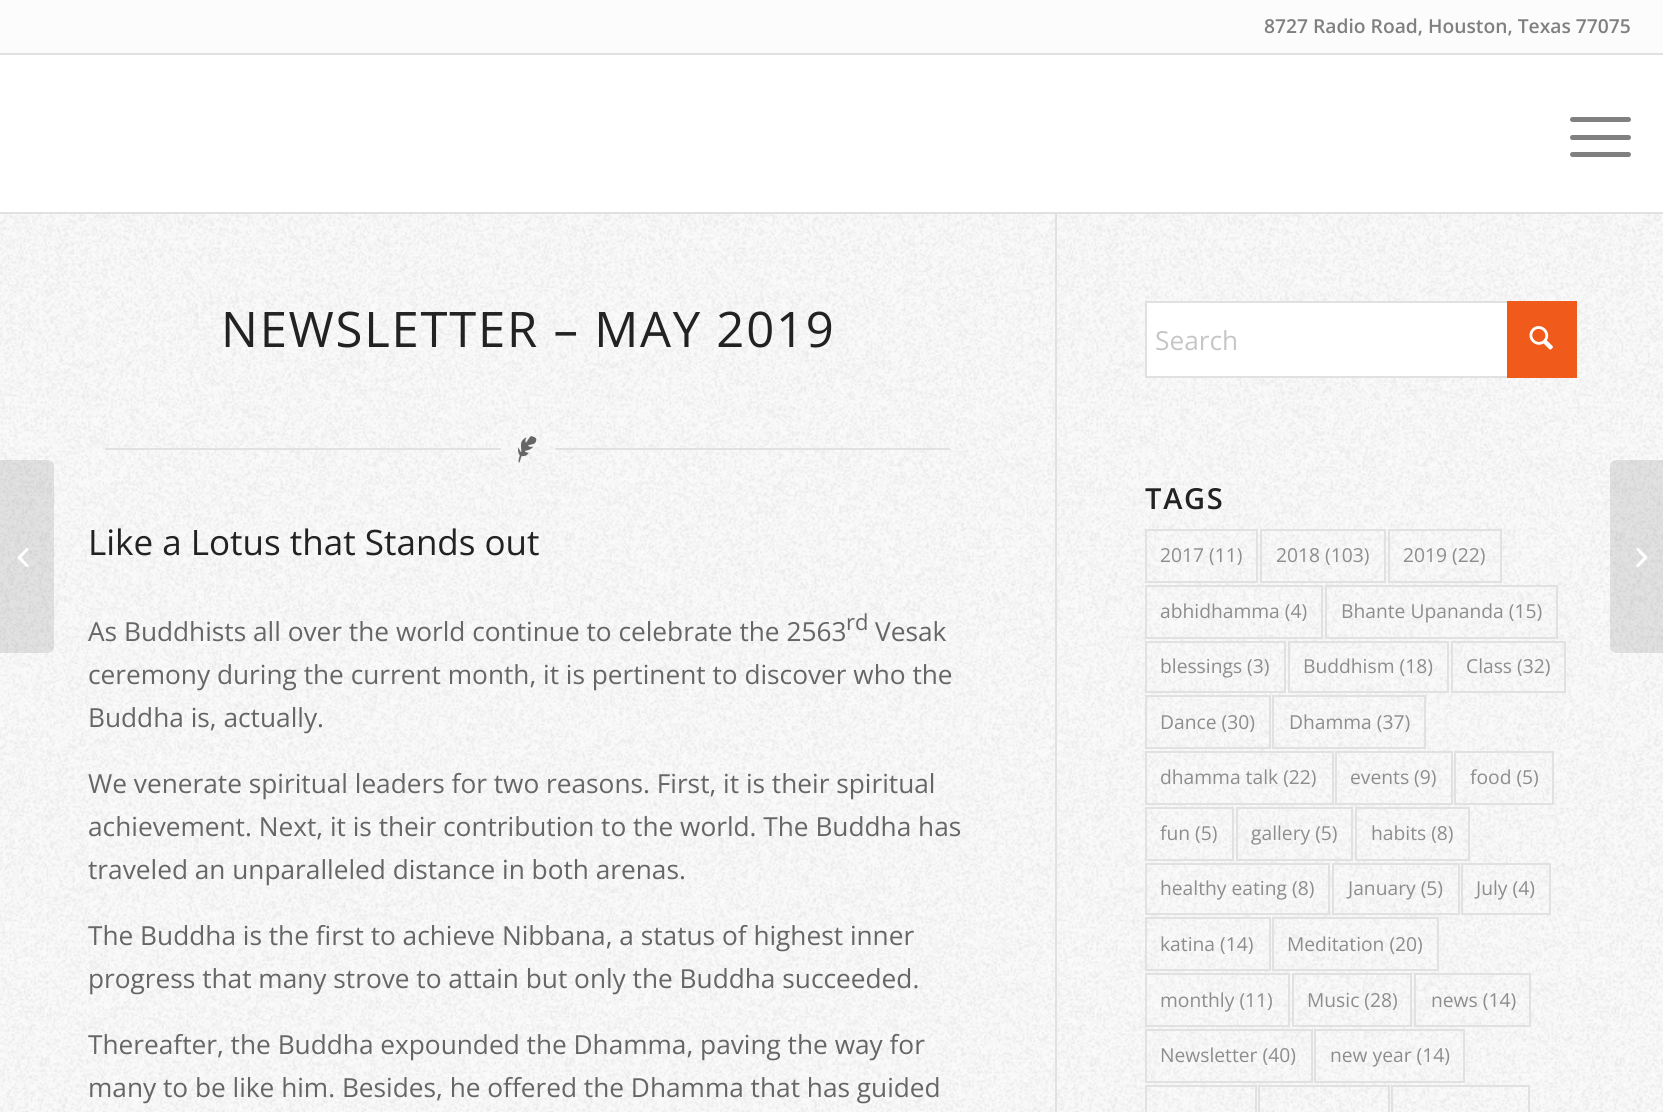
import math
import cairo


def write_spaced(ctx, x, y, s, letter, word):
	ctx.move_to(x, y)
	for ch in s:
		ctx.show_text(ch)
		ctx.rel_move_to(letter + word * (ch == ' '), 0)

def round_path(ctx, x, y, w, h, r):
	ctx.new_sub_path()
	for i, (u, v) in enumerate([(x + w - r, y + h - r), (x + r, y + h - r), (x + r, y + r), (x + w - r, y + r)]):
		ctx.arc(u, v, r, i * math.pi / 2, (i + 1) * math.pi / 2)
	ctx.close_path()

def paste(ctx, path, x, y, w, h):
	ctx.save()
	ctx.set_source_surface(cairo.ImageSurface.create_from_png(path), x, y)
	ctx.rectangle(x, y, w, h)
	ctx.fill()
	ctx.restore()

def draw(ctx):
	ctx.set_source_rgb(0.973, 0.973, 0.973)
	ctx.paint()
	ctx.set_source_rgb(0.988, 0.988, 0.988)
	ctx.rectangle(0, 0, 1663, 53)
	ctx.fill()
	ctx.set_source_rgb(0.882, 0.882, 0.882)
	ctx.rectangle(0, 53, 1663, 2)
	ctx.fill()
	ctx.select_font_face('Open Sans SemiBold')
	ctx.set_font_size(19.25)
	ctx.set_source_rgb(0.502, 0.502, 0.502)
	ctx.move_to(1264, 33)
	ctx.show_text('8727 Radio Road, Houston, Texas 77075')
	ctx.set_source_rgb(1, 1, 1)
	ctx.rectangle(0, 55, 1663, 157)
	ctx.fill()
	ctx.set_source_rgb(0.882, 0.882, 0.882)
	ctx.rectangle(0, 212, 1663, 2)
	ctx.fill()
	ctx.set_source_rgb(0.502, 0.502, 0.502)
	round_path(ctx, 1570, 135, 61, 5, 2.5)
	ctx.fill()
	round_path(ctx, 1570, 117, 61, 5, 2.5)
	ctx.fill()
	round_path(ctx, 1570, 152, 61, 5, 2.5)
	ctx.fill()
	paste(ctx, 'media/2.png', 0, 214, 1663, 898)
	ctx.set_source_rgba(0, 0, 0, 0.1)
	ctx.new_path()
	ctx.move_to(0, 460)
	ctx.line_to(47, 460)
	ctx.curve_to(51, 460, 54, 463, 54, 467)
	ctx.line_to(54, 646)
	ctx.curve_to(54, 650, 51, 653, 47, 653)
	ctx.line_to(0, 653)
	ctx.close_path()
	ctx.fill()
	paste(ctx, 'media/1.png', 17, 547, 12, 20)
	ctx.set_source_rgb(0.882, 0.882, 0.882)
	ctx.rectangle(1055, 214, 2, 898)
	ctx.fill()
	ctx.select_font_face('Open Sans')
	ctx.set_font_size(49)
	ctx.set_source_rgb(0.133, 0.133, 0.133)
	write_spaced(ctx, 221, 347, 'NEWSLETTER – MAY 2019', 1.75, 0)
	ctx.set_source_rgb(0.882, 0.882, 0.882)
	ctx.rectangle(105, 448, 396, 2)
	ctx.fill()
	paste(ctx, 'media/3.png', 518, 436, 19, 27)
	ctx.rectangle(555, 448, 395, 2)
	ctx.fill()
	ctx.set_font_size(35)
	ctx.set_source_rgb(0.133, 0.133, 0.133)
	ctx.move_to(88, 555)
	ctx.show_text('Like a Lotus that Stands out')
	ctx.set_font_size(26.25)
	ctx.set_source_rgb(0.4, 0.4, 0.4)
	ctx.move_to(88, 641)
	ctx.show_text('As Buddhists all over the world continue to celebrate the 2563')
	ctx.set_font_size(22)
	ctx.move_to(846, 630)
	ctx.show_text('rd')
	ctx.set_font_size(26.25)
	for x, y, s in [
		(875, 641, 'Vesak'),
		(88, 684, 'ceremony during the current month, it is pertinent to discover who the'),
		(88, 727, 'Buddha is, actually.'),
		(88, 793, 'We venerate spiritual leaders for two reasons. First, it is their spiritual'),
		(88, 836, 'achievement. Next, it is their contribution to the world. The Buddha has'),
		(88, 879, 'traveled an unparalleled distance in both arenas.'),
		(88, 945, 'The Buddha is the first to achieve Nibbana, a status of highest inner'),
		(88, 988, 'progress that many strove to attain but only the Buddha succeeded.'),
		(88, 1054, 'Thereafter, the Buddha expounded the Dhamma, paving the way for'),
		(88, 1097, 'many to be like him. Besides, he offered the Dhamma that has guided'),
	]:
		ctx.move_to(x, y)
		ctx.show_text(s)
	ctx.set_source_rgb(1, 1, 1)
	ctx.rectangle(1147, 303, 360, 73)
	ctx.fill()
	ctx.rectangle(1146, 302, 430, 75)
	ctx.set_source_rgb(0.882, 0.882, 0.882)
	ctx.stroke()
	ctx.set_source_rgb(0.776, 0.776, 0.776)
	ctx.move_to(1155, 350)
	ctx.show_text('Search')
	ctx.set_source_rgb(0.941, 0.353, 0.102)
	ctx.rectangle(1507, 301, 70, 77)
	ctx.fill()
	paste(ctx, 'media/4.png', 1529, 326, 24, 24)
	ctx.select_font_face('Open Sans SemiBold')
	ctx.set_font_size(29)
	ctx.set_source_rgb(0.133, 0.133, 0.133)
	write_spaced(ctx, 1145, 509, 'TAGS', 1.75, 0)
	ctx.rectangle(1146, 530, 111, 52)
	ctx.set_source_rgb(0.882, 0.882, 0.882)
	ctx.stroke()
	ctx.select_font_face('Open Sans')
	ctx.set_font_size(19.25)
	ctx.set_source_rgb(0.553, 0.553, 0.553)
	ctx.move_to(1160, 562)
	ctx.show_text('2017 (11)')
	ctx.rectangle(1261, 530, 124, 52)
	ctx.set_source_rgb(0.882, 0.882, 0.882)
	ctx.stroke()
	ctx.set_source_rgb(0.553, 0.553, 0.553)
	ctx.move_to(1276, 562)
	ctx.show_text('2018 (103)')
	ctx.rectangle(1389, 530, 112, 52)
	ctx.set_source_rgb(0.882, 0.882, 0.882)
	ctx.stroke()
	ctx.set_source_rgb(0.553, 0.553, 0.553)
	ctx.move_to(1403, 562)
	ctx.show_text('2019 (22)')
	ctx.rectangle(1146, 586, 176, 52)
	ctx.set_source_rgb(0.882, 0.882, 0.882)
	ctx.stroke()
	ctx.set_source_rgb(0.553, 0.553, 0.553)
	ctx.move_to(1160, 618)
	ctx.show_text('abhidhamma (4)')
	ctx.rectangle(1326, 586, 231, 52)
	ctx.set_source_rgb(0.882, 0.882, 0.882)
	ctx.stroke()
	ctx.set_source_rgb(0.553, 0.553, 0.553)
	ctx.move_to(1341, 618)
	ctx.show_text('Bhante Upananda (15)')
	ctx.rectangle(1146, 642, 139, 50)
	ctx.set_source_rgb(0.882, 0.882, 0.882)
	ctx.stroke()
	ctx.set_source_rgb(0.553, 0.553, 0.553)
	ctx.move_to(1160, 673)
	ctx.show_text('blessings (3)')
	ctx.rectangle(1289, 642, 159, 50)
	ctx.set_source_rgb(0.882, 0.882, 0.882)
	ctx.stroke()
	ctx.set_source_rgb(0.553, 0.553, 0.553)
	ctx.move_to(1303, 673)
	ctx.show_text('Buddhism (18)')
	ctx.rectangle(1452, 642, 113, 50)
	ctx.set_source_rgb(0.882, 0.882, 0.882)
	ctx.stroke()
	ctx.set_source_rgb(0.553, 0.553, 0.553)
	ctx.move_to(1466, 673)
	ctx.show_text('Class (32)')
	ctx.rectangle(1146, 696, 124, 52)
	ctx.set_source_rgb(0.882, 0.882, 0.882)
	ctx.stroke()
	ctx.set_source_rgb(0.553, 0.553, 0.553)
	ctx.move_to(1160, 729)
	ctx.show_text('Dance (30)')
	ctx.rectangle(1273, 696, 152, 52)
	ctx.set_source_rgb(0.882, 0.882, 0.882)
	ctx.stroke()
	ctx.set_source_rgb(0.553, 0.553, 0.553)
	ctx.move_to(1289, 729)
	ctx.show_text('Dhamma (37)')
	ctx.rectangle(1146, 752, 187, 52)
	ctx.set_source_rgb(0.882, 0.882, 0.882)
	ctx.stroke()
	ctx.set_source_rgb(0.553, 0.553, 0.553)
	ctx.move_to(1160, 784)
	ctx.show_text('dhamma talk (22)')
	ctx.rectangle(1336, 752, 116, 52)
	ctx.set_source_rgb(0.882, 0.882, 0.882)
	ctx.stroke()
	ctx.set_source_rgb(0.553, 0.553, 0.553)
	ctx.move_to(1350, 784)
	ctx.show_text('events (9)')
	ctx.rectangle(1455, 752, 98, 52)
	ctx.set_source_rgb(0.882, 0.882, 0.882)
	ctx.stroke()
	ctx.set_source_rgb(0.553, 0.553, 0.553)
	ctx.move_to(1470, 784)
	ctx.show_text('food (5)')
	ctx.rectangle(1146, 808, 87, 52)
	ctx.set_source_rgb(0.882, 0.882, 0.882)
	ctx.stroke()
	ctx.set_source_rgb(0.553, 0.553, 0.553)
	ctx.move_to(1160, 840)
	ctx.show_text('fun (5)')
	ctx.rectangle(1237, 808, 115, 52)
	ctx.set_source_rgb(0.882, 0.882, 0.882)
	ctx.stroke()
	ctx.set_source_rgb(0.553, 0.553, 0.553)
	ctx.move_to(1251, 840)
	ctx.show_text('gallery (5)')
	ctx.rectangle(1356, 808, 113, 52)
	ctx.set_source_rgb(0.882, 0.882, 0.882)
	ctx.stroke()
	ctx.set_source_rgb(0.553, 0.553, 0.553)
	ctx.move_to(1371, 840)
	ctx.show_text('habits (8)')
	ctx.rectangle(1146, 864, 183, 50)
	ctx.set_source_rgb(0.882, 0.882, 0.882)
	ctx.stroke()
	ctx.set_source_rgb(0.553, 0.553, 0.553)
	ctx.move_to(1160, 895)
	ctx.show_text('healthy eating (8)')
	ctx.rectangle(1333, 864, 126, 50)
	ctx.set_source_rgb(0.882, 0.882, 0.882)
	ctx.stroke()
	ctx.set_source_rgb(0.553, 0.553, 0.553)
	ctx.move_to(1348, 895)
	ctx.show_text('January (5)')
	ctx.rectangle(1462, 864, 88, 50)
	ctx.set_source_rgb(0.882, 0.882, 0.882)
	ctx.stroke()
	ctx.set_source_rgb(0.553, 0.553, 0.553)
	ctx.move_to(1476, 895)
	ctx.show_text('July (4)')
	ctx.rectangle(1146, 918, 124, 52)
	ctx.set_source_rgb(0.882, 0.882, 0.882)
	ctx.stroke()
	ctx.set_source_rgb(0.553, 0.553, 0.553)
	ctx.move_to(1160, 951)
	ctx.show_text('katina (14)')
	ctx.rectangle(1273, 918, 165, 52)
	ctx.set_source_rgb(0.882, 0.882, 0.882)
	ctx.stroke()
	ctx.set_source_rgb(0.553, 0.553, 0.553)
	ctx.move_to(1287, 951)
	ctx.show_text('Meditation (20)')
	ctx.rectangle(1146, 974, 143, 52)
	ctx.set_source_rgb(0.882, 0.882, 0.882)
	ctx.stroke()
	ctx.set_source_rgb(0.553, 0.553, 0.553)
	ctx.move_to(1160, 1007)
	ctx.show_text('monthly (11)')
	ctx.rectangle(1293, 974, 118, 52)
	ctx.set_source_rgb(0.882, 0.882, 0.882)
	ctx.stroke()
	ctx.set_source_rgb(0.553, 0.553, 0.553)
	ctx.move_to(1307, 1007)
	ctx.show_text('Music (28)')
	ctx.rectangle(1415, 974, 115, 52)
	ctx.set_source_rgb(0.882, 0.882, 0.882)
	ctx.stroke()
	ctx.set_source_rgb(0.553, 0.553, 0.553)
	ctx.move_to(1431, 1007)
	ctx.show_text('news (14)')
	ctx.rectangle(1146, 1030, 166, 52)
	ctx.set_source_rgb(0.882, 0.882, 0.882)
	ctx.stroke()
	ctx.set_source_rgb(0.553, 0.553, 0.553)
	ctx.move_to(1160, 1062)
	ctx.show_text('Newsletter (40)')
	ctx.rectangle(1315, 1030, 149, 52)
	ctx.set_source_rgb(0.882, 0.882, 0.882)
	ctx.stroke()
	ctx.set_source_rgb(0.553, 0.553, 0.553)
	ctx.move_to(1330, 1062)
	ctx.show_text('new year (14)')
	ctx.rectangle(1146, 1086, 110, 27)
	ctx.set_source_rgb(0.882, 0.882, 0.882)
	ctx.stroke()
	ctx.rectangle(1259, 1086, 130, 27)
	ctx.stroke()
	ctx.rectangle(1392, 1086, 137, 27)
	ctx.stroke()
	ctx.set_source_rgba(0, 0, 0, 0.1)
	ctx.new_path()
	ctx.move_to(1617, 460)
	ctx.line_to(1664, 460)
	ctx.line_to(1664, 653)
	ctx.line_to(1617, 653)
	ctx.curve_to(1613, 653, 1610, 650, 1610, 646)
	ctx.line_to(1610, 467)
	ctx.curve_to(1610, 463, 1613, 460, 1617, 460)
	ctx.close_path()
	ctx.fill()
	paste(ctx, 'media/5.png', 1636, 547, 12, 21)


surface = cairo.ImageSurface(cairo.FORMAT_RGB24, 1663, 1112)
ctx = cairo.Context(surface)
options = cairo.FontOptions()
options.set_hint_metrics(cairo.HINT_METRICS_OFF)
options.set_hint_style(cairo.HINT_STYLE_NONE)
ctx.set_font_options(options)
ctx.set_miter_limit(4)
draw(ctx)
surface.write_to_png('image.png')
